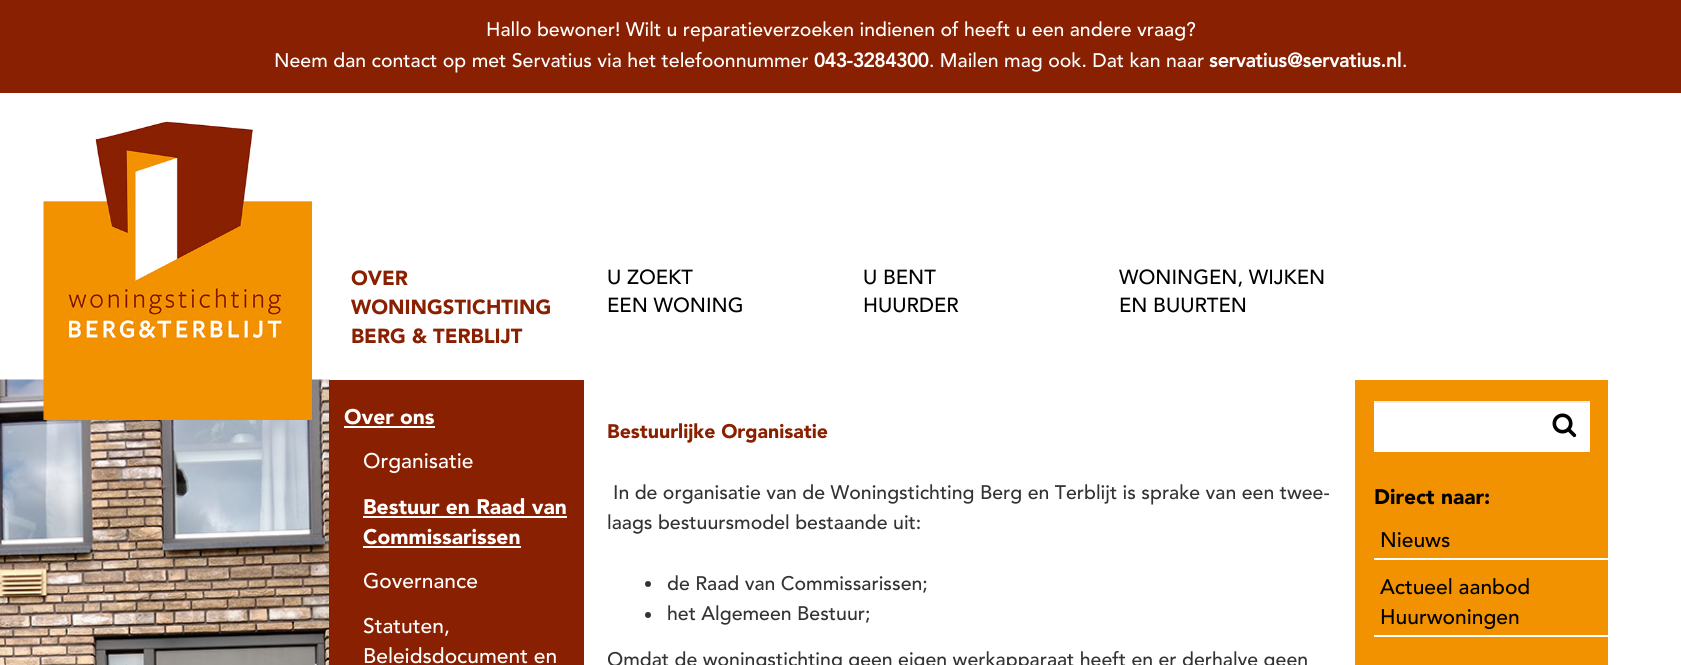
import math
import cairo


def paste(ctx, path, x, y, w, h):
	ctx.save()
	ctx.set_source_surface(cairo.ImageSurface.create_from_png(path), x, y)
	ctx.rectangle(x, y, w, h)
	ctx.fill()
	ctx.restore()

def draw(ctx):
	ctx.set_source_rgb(1, 1, 1)
	ctx.paint()
	ctx.set_source_rgb(0.537, 0.125, 0.004)
	ctx.rectangle(0, 0, 1681, 93)
	ctx.fill()
	ctx.select_font_face('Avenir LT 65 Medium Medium')
	ctx.set_font_size(19.5)
	ctx.set_source_rgb(1, 1, 1)
	ctx.move_to(486, 36)
	ctx.show_text('Hallo bewoner! Wilt u reparatieverzoeken indienen of heeft u een andere vraag?')
	ctx.move_to(274, 67)
	ctx.show_text('Neem dan contact op met Servatius via het telefoonnummer')
	ctx.select_font_face('Avenir LT 65 Medium', cairo.FONT_SLANT_NORMAL, cairo.FONT_WEIGHT_BOLD)
	ctx.move_to(814, 67)
	ctx.show_text('043-3284300')
	ctx.select_font_face('Avenir LT 65 Medium Medium')
	ctx.move_to(929, 67)
	ctx.show_text('. Mailen mag ook. Dat kan naar')
	ctx.select_font_face('Avenir LT 65 Medium', cairo.FONT_SLANT_NORMAL, cairo.FONT_WEIGHT_BOLD)
	ctx.move_to(1209, 67)
	ctx.show_text('servatius@servatius.nl')
	ctx.select_font_face('Avenir LT 65 Medium Medium')
	ctx.move_to(1402, 67)
	ctx.show_text('.')
	paste(ctx, 'media/2.png', 0, 379, 330, 286)
	paste(ctx, 'media/1.png', 43, 121, 269, 299)
	ctx.select_font_face('Avenir LT 65 Medium Black')
	ctx.set_font_size(20.25)
	ctx.set_source_rgb(0.537, 0.125, 0.004)
	for x, y, s in [
		(351, 285, 'OVER'),
		(351, 314, 'WONINGSTICHTING'),
		(351, 343, 'BERG & TERBLIJT'),
	]:
		ctx.move_to(x, y)
		ctx.show_text(s)
	ctx.select_font_face('Avenir LT 65 Medium Medium')
	ctx.set_source_rgb(0, 0, 0)
	for x, y, s in [
		(607, 284, 'U ZOEKT'),
		(607, 312, 'EEN WONING'),
		(863, 284, 'U BENT'),
		(863, 312, 'HUURDER'),
		(1119, 284, 'WONINGEN, WIJKEN'),
		(1119, 312, 'EN BUURTEN'),
	]:
		ctx.move_to(x, y)
		ctx.show_text(s)
	ctx.set_source_rgb(0.537, 0.125, 0.004)
	ctx.rectangle(329, 380, 255, 285)
	ctx.fill()
	ctx.select_font_face('Avenir LT 65 Medium Black')
	ctx.set_font_size(21)
	ctx.set_source_rgb(1, 1, 1)
	ctx.move_to(344, 424)
	ctx.show_text('Over ons')
	ctx.rectangle(344, 426, 91, 2)
	ctx.fill()
	ctx.select_font_face('Avenir LT 65 Medium Medium')
	ctx.move_to(363, 468)
	ctx.show_text('Organisatie')
	ctx.select_font_face('Avenir LT 65 Medium Black')
	ctx.move_to(363, 514)
	ctx.show_text('Bestuur en Raad van')
	ctx.rectangle(363, 516, 204, 2)
	ctx.fill()
	ctx.move_to(363, 544)
	ctx.show_text('Commissarissen')
	ctx.rectangle(363, 546, 158, 2)
	ctx.fill()
	ctx.select_font_face('Avenir LT 65 Medium Medium')
	for x, y, s in [
		(363, 588, 'Governance'),
		(363, 633, 'Statuten,'),
		(363, 663, 'Beleidsdocument en'),
	]:
		ctx.move_to(x, y)
		ctx.show_text(s)
	ctx.select_font_face('Avenir LT 65 Medium Black')
	ctx.set_font_size(19.5)
	ctx.set_source_rgb(0.537, 0.125, 0.004)
	ctx.move_to(607, 438)
	ctx.show_text('Bestuurlijke Organisatie')
	ctx.select_font_face('Avenir LT 65 Medium Medium')
	ctx.set_source_rgb(0.2, 0.2, 0.2)
	ctx.move_to(613, 499)
	ctx.show_text('In de organisatie van de Woningstichting Berg en Terblijt is sprake van een twee-')
	ctx.move_to(607, 529)
	ctx.show_text('laags bestuursmodel bestaande uit:')
	ctx.new_path()
	ctx.arc(648, 584, 3, 0, 2 * math.pi)
	ctx.fill()
	ctx.move_to(667, 590)
	ctx.show_text('de Raad van Commissarissen;')
	ctx.new_path()
	ctx.arc(648, 615, 3, 0, 2 * math.pi)
	ctx.fill()
	ctx.move_to(667, 620)
	ctx.show_text('het Algemeen Bestuur;')
	ctx.move_to(607, 666)
	ctx.show_text('Omdat de woningstichting geen eigen werkapparaat heeft en er derhalve geen')
	ctx.set_source_rgb(0.953, 0.573, 0)
	ctx.rectangle(1355, 380, 253, 285)
	ctx.fill()
	ctx.set_source_rgb(1, 1, 1)
	ctx.rectangle(1374, 403, 216, 49)
	ctx.fill()
	ctx.set_source_rgb(0.925, 0.925, 0.925)
	ctx.rectangle(1374, 401, 216, 2)
	ctx.fill()
	paste(ctx, 'media/3.png', 1552, 413, 25, 25)
	ctx.select_font_face('Avenir LT 65 Medium Black')
	ctx.set_font_size(21)
	ctx.set_source_rgb(0, 0, 0)
	ctx.move_to(1374, 504)
	ctx.show_text('Direct naar:')
	ctx.set_source_rgb(1, 1, 1)
	ctx.rectangle(1374, 558, 234, 2)
	ctx.fill()
	ctx.select_font_face('Avenir LT 65 Medium Medium')
	ctx.set_source_rgb(0, 0, 0)
	ctx.move_to(1380, 547)
	ctx.show_text('Nieuws')
	ctx.set_source_rgb(1, 1, 1)
	ctx.rectangle(1374, 635, 234, 2)
	ctx.fill()
	ctx.set_source_rgb(0, 0, 0)
	ctx.move_to(1380, 594)
	ctx.show_text('Actueel aanbod')
	ctx.move_to(1380, 624)
	ctx.show_text('Huurwoningen')


surface = cairo.ImageSurface(cairo.FORMAT_RGB24, 1681, 665)
ctx = cairo.Context(surface)
options = cairo.FontOptions()
options.set_hint_metrics(cairo.HINT_METRICS_OFF)
options.set_hint_style(cairo.HINT_STYLE_NONE)
ctx.set_font_options(options)
ctx.set_miter_limit(4)
draw(ctx)
surface.write_to_png('image.png')
